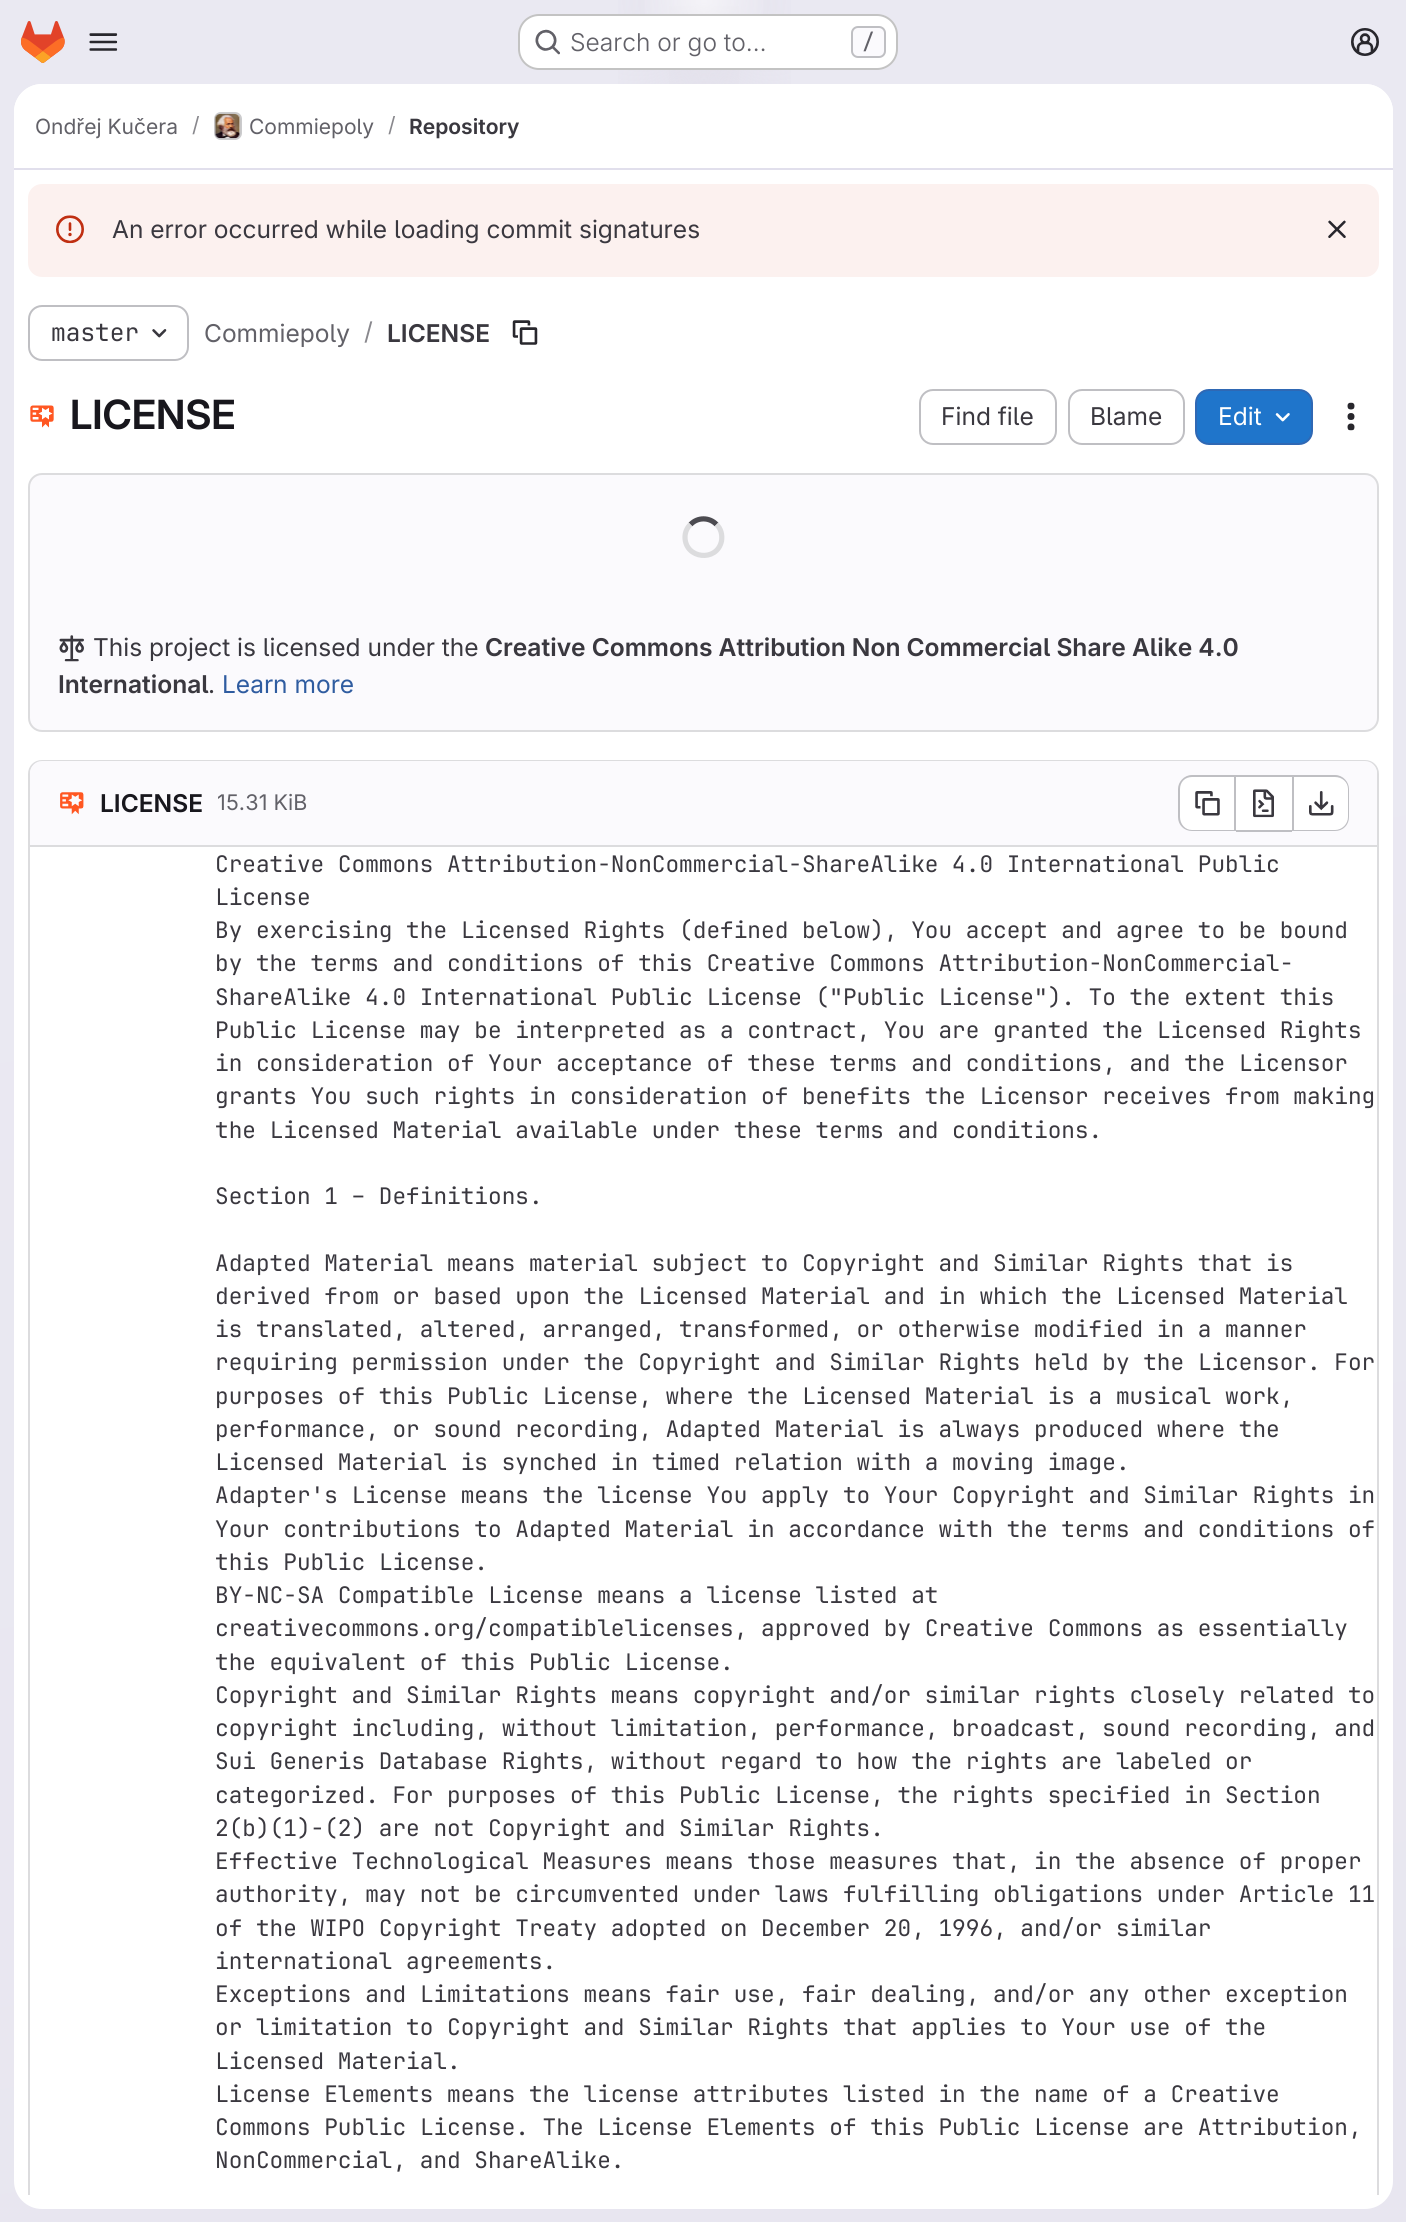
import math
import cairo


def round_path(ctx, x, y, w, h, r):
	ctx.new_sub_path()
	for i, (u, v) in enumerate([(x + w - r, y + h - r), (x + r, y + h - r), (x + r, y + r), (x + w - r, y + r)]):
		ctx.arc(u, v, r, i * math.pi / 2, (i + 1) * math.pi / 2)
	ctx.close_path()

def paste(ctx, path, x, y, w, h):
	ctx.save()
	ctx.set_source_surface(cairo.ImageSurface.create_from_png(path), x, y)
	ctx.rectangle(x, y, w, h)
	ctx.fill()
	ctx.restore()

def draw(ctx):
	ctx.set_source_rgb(1, 1, 1)
	ctx.paint()
	gradient = cairo.LinearGradient(915, 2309, 492, -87)
	gradient.add_color_stop_rgba(0, 0.91, 0.902, 0.941, 1)
	gradient.add_color_stop_rgba(0.7, 0.918, 0.914, 0.949, 1)
	ctx.set_source(gradient)
	ctx.rectangle(0, 0, 1406, 2222)
	ctx.fill()
	gradient = cairo.RadialGradient(0, 0, 0, 0, 0, 1)
	gradient.set_matrix(cairo.Matrix(1 / 704, 0, 0, 1 / 2223, -1 * 704 / 704, -1 * 0 / 2223))
	gradient.add_color_stop_rgba(0, 0.894, 0.886, 0.929, 1)
	gradient.add_color_stop_rgba(0.17, 0.894, 0.886, 0.929, 0)
	ctx.set_source(gradient)
	ctx.rectangle(618, 0, 173, 84)
	ctx.fill()
	gradient = cairo.RadialGradient(0, 0, 0, 0, 0, 1)
	gradient.set_matrix(cairo.Matrix(1 / 704, 0, 0, 1 / 2223, -1 * 704 / 704, -1 * 0 / 2223))
	gradient.add_color_stop_rgba(0, 0.894, 0.886, 0.925, 1)
	gradient.add_color_stop_rgba(0.12, 0.894, 0.886, 0.925, 0)
	ctx.set_source(gradient)
	ctx.rectangle(669, 6, 70, 78)
	ctx.fill()
	gradient = cairo.RadialGradient(704, 0, 0, 704, 0, 2331)
	gradient.add_color_stop_rgba(0, 1, 1, 1, 0.6)
	gradient.add_color_stop_rgba(0.03, 1, 1, 1, 0)
	ctx.set_source(gradient)
	ctx.rectangle(645, 0, 118, 14)
	ctx.fill()
	paste(ctx, 'media/1.png', 21, 21, 44, 42)
	paste(ctx, 'media/2.png', 89, 33, 29, 18)
	ctx.set_source_rgb(1, 1, 1)
	round_path(ctx, 518, 14, 380, 56, 21)
	ctx.fill()
	round_path(ctx, 519, 15, 378, 54, 20)
	ctx.set_source_rgba(0.02, 0.02, 0.024, 0.24)
	ctx.stroke()
	paste(ctx, 'media/3.png', 535, 29, 25, 26)
	ctx.select_font_face('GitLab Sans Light')
	ctx.set_font_size(24.5)
	ctx.set_source_rgb(0.384, 0.38, 0.408)
	ctx.move_to(570, 51)
	ctx.show_text('Search or go to…')
	ctx.set_source_rgb(0.984, 0.98, 0.992)
	round_path(ctx, 852, 27, 33, 30, 6)
	ctx.fill_preserve()
	ctx.set_source_rgb(0.749, 0.749, 0.765)
	ctx.stroke()
	ctx.select_font_face('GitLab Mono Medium')
	ctx.set_font_size(21)
	ctx.set_source_rgb(0.384, 0.38, 0.408)
	ctx.move_to(862, 49)
	ctx.show_text('/')
	paste(ctx, 'media/4.png', 1351, 28, 28, 28)
	ctx.set_source_rgb(1, 1, 1)
	round_path(ctx, 14, 84, 1379, 2125, 28)
	ctx.fill()
	ctx.new_path()
	ctx.move_to(42, 84)
	ctx.line_to(1365, 84)
	ctx.curve_to(1380.5, 84, 1393, 96.5, 1393, 112)
	ctx.line_to(1393, 170)
	ctx.line_to(14, 170)
	ctx.line_to(14, 112)
	ctx.curve_to(14, 96.5, 26.5, 84, 42, 84)
	ctx.close_path()
	ctx.fill()
	ctx.set_source_rgb(0.882, 0.875, 0.925)
	ctx.rectangle(14, 168, 1379, 2)
	ctx.fill()
	ctx.select_font_face('GitLab Sans')
	ctx.set_source_rgb(0.384, 0.38, 0.408)
	ctx.move_to(35, 134)
	ctx.show_text('Ondřej Kučera')
	ctx.set_source_rgb(0.537, 0.533, 0.553)
	ctx.move_to(192, 132)
	ctx.show_text('/')
	round_path(ctx, 215, 113, 26, 26, 6)
	ctx.set_source_rgb(0.863, 0.863, 0.871)
	ctx.stroke()
	paste(ctx, 'media/5.png', 214, 113, 27, 26)
	round_path(ctx, 215, 113, 26, 26, 6)
	ctx.set_source_rgba(0.02, 0.02, 0.024, 0.08)
	ctx.stroke()
	ctx.set_source_rgb(0.384, 0.38, 0.408)
	ctx.move_to(249, 134)
	ctx.show_text('Commiepoly')
	ctx.set_source_rgb(0.537, 0.533, 0.553)
	ctx.move_to(388, 132)
	ctx.show_text('/')
	ctx.select_font_face('GitLab Sans SemiBold')
	ctx.set_source_rgb(0.227, 0.22, 0.247)
	ctx.move_to(409, 134)
	ctx.show_text('Repository')
	ctx.set_source_rgb(0.988, 0.945, 0.937)
	round_path(ctx, 28, 184, 1351, 93, 14)
	ctx.fill()
	paste(ctx, 'media/6.png', 56, 215, 28, 29)
	ctx.select_font_face('GitLab Sans')
	ctx.set_font_size(24.5)
	ctx.set_source_rgb(0.227, 0.22, 0.247)
	ctx.move_to(112, 238)
	ctx.show_text('An error occurred while loading commit signatures')
	paste(ctx, 'media/7.png', 1328, 220, 18, 18)
	round_path(ctx, 29, 306, 159, 54, 13)
	ctx.set_source_rgb(0.749, 0.749, 0.765)
	ctx.stroke()
	ctx.select_font_face('GitLab Mono')
	ctx.set_source_rgb(0.227, 0.22, 0.247)
	ctx.move_to(51, 341)
	ctx.show_text('master')
	paste(ctx, 'media/8.png', 152, 329, 15, 9)
	ctx.select_font_face('GitLab Sans')
	ctx.set_source_rgb(0.384, 0.38, 0.408)
	ctx.move_to(204, 342)
	ctx.show_text('Commiepoly')
	ctx.set_source_rgb(0.537, 0.533, 0.553)
	ctx.move_to(364, 340)
	ctx.show_text('/')
	ctx.select_font_face('GitLab Sans SemiBold')
	ctx.set_source_rgb(0.227, 0.22, 0.247)
	ctx.move_to(387, 342)
	ctx.show_text('LICENSE')
	paste(ctx, 'media/9.png', 512, 320, 26, 25)
	paste(ctx, 'media/10.png', 30, 405, 24, 23)
	ctx.select_font_face('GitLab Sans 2 SemiBold')
	ctx.set_font_size(40.25)
	ctx.set_source_rgb(0.094, 0.09, 0.114)
	ctx.move_to(70, 429)
	ctx.show_text('LICENSE')
	round_path(ctx, 920, 390, 136, 54, 13)
	ctx.set_source_rgb(0.749, 0.749, 0.765)
	ctx.stroke()
	ctx.select_font_face('GitLab Sans')
	ctx.set_font_size(24.5)
	ctx.set_source_rgb(0.227, 0.22, 0.247)
	ctx.move_to(941, 425)
	ctx.show_text('Find file')
	round_path(ctx, 1069, 390, 115, 54, 13)
	ctx.set_source_rgb(0.749, 0.749, 0.765)
	ctx.stroke()
	ctx.set_source_rgb(0.227, 0.22, 0.247)
	ctx.move_to(1090, 425)
	ctx.show_text('Blame')
	ctx.set_source_rgb(0.122, 0.459, 0.796)
	round_path(ctx, 1196, 390, 116, 54, 13)
	ctx.fill_preserve()
	ctx.set_source_rgb(0.184, 0.408, 0.706)
	ctx.stroke()
	ctx.set_source_rgb(1, 1, 1)
	ctx.move_to(1218, 425)
	ctx.show_text('Edit')
	paste(ctx, 'media/11.png', 1275, 413, 15, 9)
	paste(ctx, 'media/12.png', 1347, 402, 8, 29)
	ctx.set_source_rgb(0.984, 0.98, 0.992)
	round_path(ctx, 29, 474, 1349, 257, 13)
	ctx.fill_preserve()
	ctx.set_source_rgb(0.863, 0.863, 0.871)
	ctx.stroke()
	ctx.new_path()
	ctx.move_to(690.5, 524.5)
	ctx.curve_to(697.5, 517, 709.5, 517, 716.5, 524.5)
	ctx.set_source_rgb(0.298, 0.294, 0.318)
	ctx.set_line_width(5.2)
	ctx.stroke()
	ctx.new_path()
	ctx.move_to(716.5, 524.5)
	ctx.curve_to(721, 528.5, 722.5, 535, 721.5, 541)
	ctx.curve_to(717, 562.5, 685, 559, 685, 537)
	ctx.curve_to(685, 532.5, 687, 527.5, 690.5, 524.5)
	ctx.set_source_rgb(0.863, 0.863, 0.871)
	ctx.stroke()
	paste(ctx, 'media/13.png', 59, 635, 25, 27)
	ctx.set_source_rgb(0.227, 0.22, 0.247)
	ctx.move_to(93, 656)
	ctx.show_text('This project is licensed under the')
	ctx.select_font_face('GitLab Sans SemiBold')
	ctx.move_to(485, 656)
	ctx.show_text('Creative Commons Attribution Non Commercial Share Alike 4.0')
	ctx.move_to(58, 693)
	ctx.show_text('International')
	ctx.select_font_face('GitLab Sans')
	ctx.move_to(208, 693)
	ctx.show_text('.')
	ctx.set_source_rgb(0.184, 0.361, 0.627)
	ctx.move_to(222, 693)
	ctx.show_text('Learn more')
	ctx.save()
	ctx.rectangle(14, 170, 1379, 2025)
	ctx.clip()
	ctx.set_source_rgb(0.863, 0.863, 0.871)
	ctx.new_path()
	ctx.move_to(42, 760)
	ctx.curve_to(34, 760, 28, 766, 28, 774)
	ctx.line_to(28, 2205)
	ctx.line_to(30, 2206)
	ctx.line_to(30, 774)
	ctx.curve_to(30, 767, 35, 762, 42, 762)
	ctx.line_to(1365, 762)
	ctx.curve_to(1372, 762, 1377, 767, 1377, 774)
	ctx.line_to(1377, 2206)
	ctx.line_to(1379, 2205)
	ctx.line_to(1379, 774)
	ctx.curve_to(1379, 766, 1373, 760, 1365, 760)
	ctx.close_path()
	ctx.fill()
	ctx.restore()
	ctx.set_source_rgb(0.984, 0.98, 0.992)
	ctx.new_path()
	ctx.move_to(42, 761)
	ctx.line_to(1365, 761)
	ctx.curve_to(1371.5, 761, 1377, 766.5, 1377, 773)
	ctx.line_to(1377, 847)
	ctx.line_to(30, 847)
	ctx.line_to(30, 773)
	ctx.curve_to(30, 766.5, 35.5, 761, 42, 761)
	ctx.close_path()
	ctx.fill()
	ctx.set_source_rgb(0.863, 0.863, 0.871)
	ctx.rectangle(30, 845, 1347, 2)
	ctx.fill()
	paste(ctx, 'media/14.png', 60, 792, 24, 23)
	ctx.select_font_face('GitLab Sans SemiBold')
	ctx.set_source_rgb(0.094, 0.09, 0.114)
	ctx.move_to(100, 812)
	ctx.show_text('LICENSE')
	ctx.select_font_face('GitLab Sans')
	ctx.set_font_size(21.5)
	ctx.set_source_rgb(0.384, 0.38, 0.408)
	ctx.move_to(217, 810)
	ctx.show_text('15.31 KiB')
	ctx.set_source_rgb(1, 1, 1)
	ctx.new_path()
	ctx.move_to(1192, 777)
	ctx.line_to(1234, 777)
	ctx.line_to(1234, 830)
	ctx.line_to(1192, 830)
	ctx.curve_to(1185.5, 830, 1180, 824.5, 1180, 818)
	ctx.line_to(1180, 789)
	ctx.curve_to(1180, 782.5, 1185.5, 777, 1192, 777)
	ctx.close_path()
	ctx.fill()
	ctx.set_source_rgb(0.749, 0.749, 0.765)
	ctx.set_fill_rule(cairo.FILL_RULE_EVEN_ODD)
	ctx.new_path()
	ctx.move_to(1192, 775)
	ctx.line_to(1234, 775)
	ctx.line_to(1234, 831)
	ctx.line_to(1192, 831)
	ctx.curve_to(1184, 831, 1178, 825, 1178, 817)
	ctx.line_to(1178, 789)
	ctx.curve_to(1178, 782, 1184, 775, 1192, 775)
	ctx.close_path()
	ctx.move_to(1192, 777)
	ctx.line_to(1234, 777)
	ctx.line_to(1234, 830)
	ctx.line_to(1192, 830)
	ctx.curve_to(1185, 830, 1180, 824, 1180, 817)
	ctx.line_to(1180, 789)
	ctx.curve_to(1180, 782, 1185, 777, 1192, 777)
	ctx.close_path()
	ctx.fill()
	paste(ctx, 'media/15.png', 1195, 791, 25, 25)
	ctx.set_source_rgb(1, 1, 1)
	ctx.rectangle(1236, 777, 56, 53)
	ctx.fill()
	ctx.set_source_rgb(0.749, 0.749, 0.765)
	ctx.rectangle(1236, 775, 56, 2)
	ctx.rectangle(1236, 830, 56, 2)
	ctx.rectangle(1234, 775, 2, 56)
	ctx.fill()
	paste(ctx, 'media/16.png', 1253, 789, 21, 29)
	ctx.set_source_rgb(1, 1, 1)
	ctx.new_path()
	ctx.move_to(1293, 777)
	ctx.line_to(1336, 777)
	ctx.curve_to(1342.5, 777, 1348, 782.5, 1348, 789)
	ctx.line_to(1348, 818)
	ctx.curve_to(1348, 824.5, 1342.5, 830, 1336, 830)
	ctx.line_to(1293, 830)
	ctx.close_path()
	ctx.fill()
	ctx.set_source_rgb(0.749, 0.749, 0.765)
	ctx.new_path()
	ctx.move_to(1293, 775)
	ctx.line_to(1335, 775)
	ctx.curve_to(1343, 775, 1349, 782, 1349, 789)
	ctx.line_to(1349, 817)
	ctx.curve_to(1349, 825, 1343, 831, 1335, 831)
	ctx.line_to(1293, 831)
	ctx.close_path()
	ctx.move_to(1293, 777)
	ctx.line_to(1335, 777)
	ctx.curve_to(1342, 777, 1348, 782, 1348, 789)
	ctx.line_to(1348, 817)
	ctx.curve_to(1348, 824, 1342, 830, 1335, 830)
	ctx.line_to(1293, 830)
	ctx.close_path()
	ctx.fill()
	ctx.rectangle(1292, 775, 2, 56)
	ctx.fill()
	paste(ctx, 'media/17.png', 1309, 791, 25, 25)
	ctx.select_font_face('GitLab Mono')
	ctx.set_font_size(22.75)
	ctx.set_source_rgb(0.227, 0.22, 0.247)
	for x, y, s in [
		(215, 872, 'Creative Commons Attribution-NonCommercial-ShareAlike 4.0 International Public'),
		(215, 905, 'License'),
		(215, 938, 'By exercising the Licensed Rights (defined below), You accept and agree to be bound'),
		(215, 971, 'by the terms and conditions of this Creative Commons Attribution-NonCommercial-'),
		(215, 1005, 'ShareAlike 4.0 International Public License ("Public License"). To the extent this'),
		(215, 1038, 'Public License may be interpreted as a contract, You are granted the Licensed Rights'),
		(215, 1071, 'in consideration of Your acceptance of these terms and conditions, and the Licensor'),
		(215, 1104, 'grants You such rights in consideration of benefits the Licensor receives from making'),
		(215, 1138, 'the Licensed Material available under these terms and conditions.'),
		(215, 1204, 'Section 1 – Definitions.'),
		(215, 1271, 'Adapted Material means material subject to Copyright and Similar Rights that is'),
		(215, 1304, 'derived from or based upon the Licensed Material and in which the Licensed Material'),
		(215, 1337, 'is translated, altered, arranged, transformed, or otherwise modified in a manner'),
		(215, 1370, 'requiring permission under the Copyright and Similar Rights held by the Licensor. For'),
		(215, 1404, 'purposes of this Public License, where the Licensed Material is a musical work,'),
		(215, 1437, 'performance, or sound recording, Adapted Material is always produced where the'),
		(215, 1470, 'Licensed Material is synched in timed relation with a moving image.'),
		(215, 1503, 'Adapter\'s License means the license You apply to Your Copyright and Similar Rights in'),
		(215, 1537, 'Your contributions to Adapted Material in accordance with the terms and conditions of'),
		(215, 1570, 'this Public License.'),
		(215, 1603, 'BY-NC-SA Compatible License means a license listed at'),
		(215, 1636, 'creativecommons.org/compatiblelicenses, approved by Creative Commons as essentially'),
		(215, 1670, 'the equivalent of this Public License.'),
		(215, 1703, 'Copyright and Similar Rights means copyright and/or similar rights closely related to'),
		(215, 1736, 'copyright including, without limitation, performance, broadcast, sound recording, and'),
		(215, 1769, 'Sui Generis Database Rights, without regard to how the rights are labeled or'),
		(215, 1803, 'categorized. For purposes of this Public License, the rights specified in Section'),
		(215, 1836, '2(b)(1)-(2) are not Copyright and Similar Rights.'),
		(215, 1869, 'Effective Technological Measures means those measures that, in the absence of proper'),
		(215, 1902, 'authority, may not be circumvented under laws fulfilling obligations under Article 11'),
		(215, 1936, 'of the WIPO Copyright Treaty adopted on December 20, 1996, and/or similar'),
		(215, 1969, 'international agreements.'),
		(215, 2002, 'Exceptions and Limitations means fair use, fair dealing, and/or any other exception'),
		(215, 2035, 'or limitation to Copyright and Similar Rights that applies to Your use of the'),
		(215, 2069, 'Licensed Material.'),
		(215, 2102, 'License Elements means the license attributes listed in the name of a Creative'),
		(215, 2135, 'Commons Public License. The License Elements of this Public License are Attribution,'),
		(215, 2168, 'NonCommercial, and ShareAlike.'),
	]:
		ctx.move_to(x, y)
		ctx.show_text(s)


surface = cairo.ImageSurface(cairo.FORMAT_RGB24, 1406, 2222)
ctx = cairo.Context(surface)
options = cairo.FontOptions()
options.set_hint_metrics(cairo.HINT_METRICS_OFF)
options.set_hint_style(cairo.HINT_STYLE_NONE)
ctx.set_font_options(options)
ctx.set_miter_limit(4)
draw(ctx)
surface.write_to_png('image.png')
